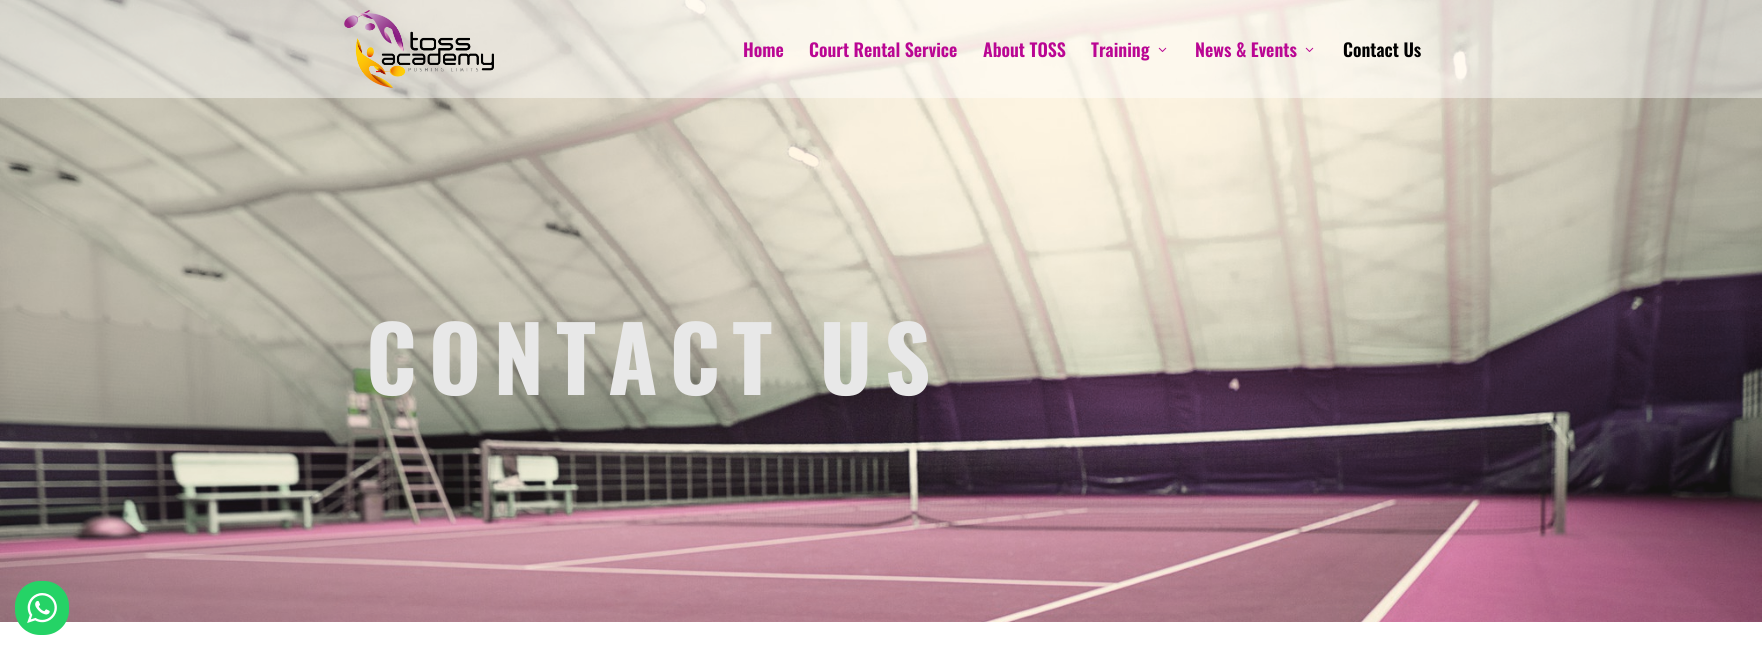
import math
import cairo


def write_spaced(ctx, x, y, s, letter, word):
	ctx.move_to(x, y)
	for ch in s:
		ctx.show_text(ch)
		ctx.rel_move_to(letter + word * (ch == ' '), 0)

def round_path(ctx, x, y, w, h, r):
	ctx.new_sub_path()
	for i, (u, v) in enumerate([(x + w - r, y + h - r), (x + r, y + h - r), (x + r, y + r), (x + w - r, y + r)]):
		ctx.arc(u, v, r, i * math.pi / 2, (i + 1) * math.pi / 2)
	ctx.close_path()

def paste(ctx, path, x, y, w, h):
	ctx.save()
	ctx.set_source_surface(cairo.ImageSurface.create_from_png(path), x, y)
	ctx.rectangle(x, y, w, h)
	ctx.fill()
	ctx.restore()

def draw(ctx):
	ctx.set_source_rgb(1, 1, 1)
	ctx.paint()
	paste(ctx, 'media/4.png', 0, 0, 1762, 622)
	ctx.set_source_rgba(1, 1, 1, 0.43)
	ctx.rectangle(0, 0, 1762, 98)
	ctx.fill()
	paste(ctx, 'media/1.png', 344, 10, 150, 78)
	ctx.select_font_face('Oswald SemiBold')
	ctx.set_font_size(18)
	ctx.set_source_rgb(0.729, 0.027, 0.576)
	for x, y, s in [
		(743, 57, 'Home'),
		(809, 57, 'Court Rental Service'),
		(983, 57, 'About TOSS'),
		(1091, 57, 'Training'),
	]:
		ctx.move_to(x, y)
		ctx.show_text(s)
	paste(ctx, 'media/2.png', 1158, 47, 9, 5)
	ctx.move_to(1195, 57)
	ctx.show_text('News & Events')
	paste(ctx, 'media/3.png', 1305, 47, 9, 5)
	ctx.set_source_rgb(0, 0, 0)
	ctx.move_to(1343, 57)
	ctx.show_text('Contact Us')
	ctx.select_font_face('Oswald', cairo.FONT_SLANT_NORMAL, cairo.FONT_WEIGHT_BOLD)
	ctx.set_font_size(90)
	ctx.set_source_rgb(0.91, 0.91, 0.91)
	write_spaced(ctx, 366, 395, 'CONTACT US', 12, 0)
	ctx.set_source_rgb(0.145, 0.827, 0.4)
	round_path(ctx, 15, 581, 54, 54, 25)
	ctx.fill()
	paste(ctx, 'media/5.png', 27, 593, 30, 30)


surface = cairo.ImageSurface(cairo.FORMAT_RGB24, 1762, 650)
ctx = cairo.Context(surface)
options = cairo.FontOptions()
options.set_hint_metrics(cairo.HINT_METRICS_OFF)
options.set_hint_style(cairo.HINT_STYLE_NONE)
ctx.set_font_options(options)
ctx.set_miter_limit(4)
draw(ctx)
surface.write_to_png('image.png')
